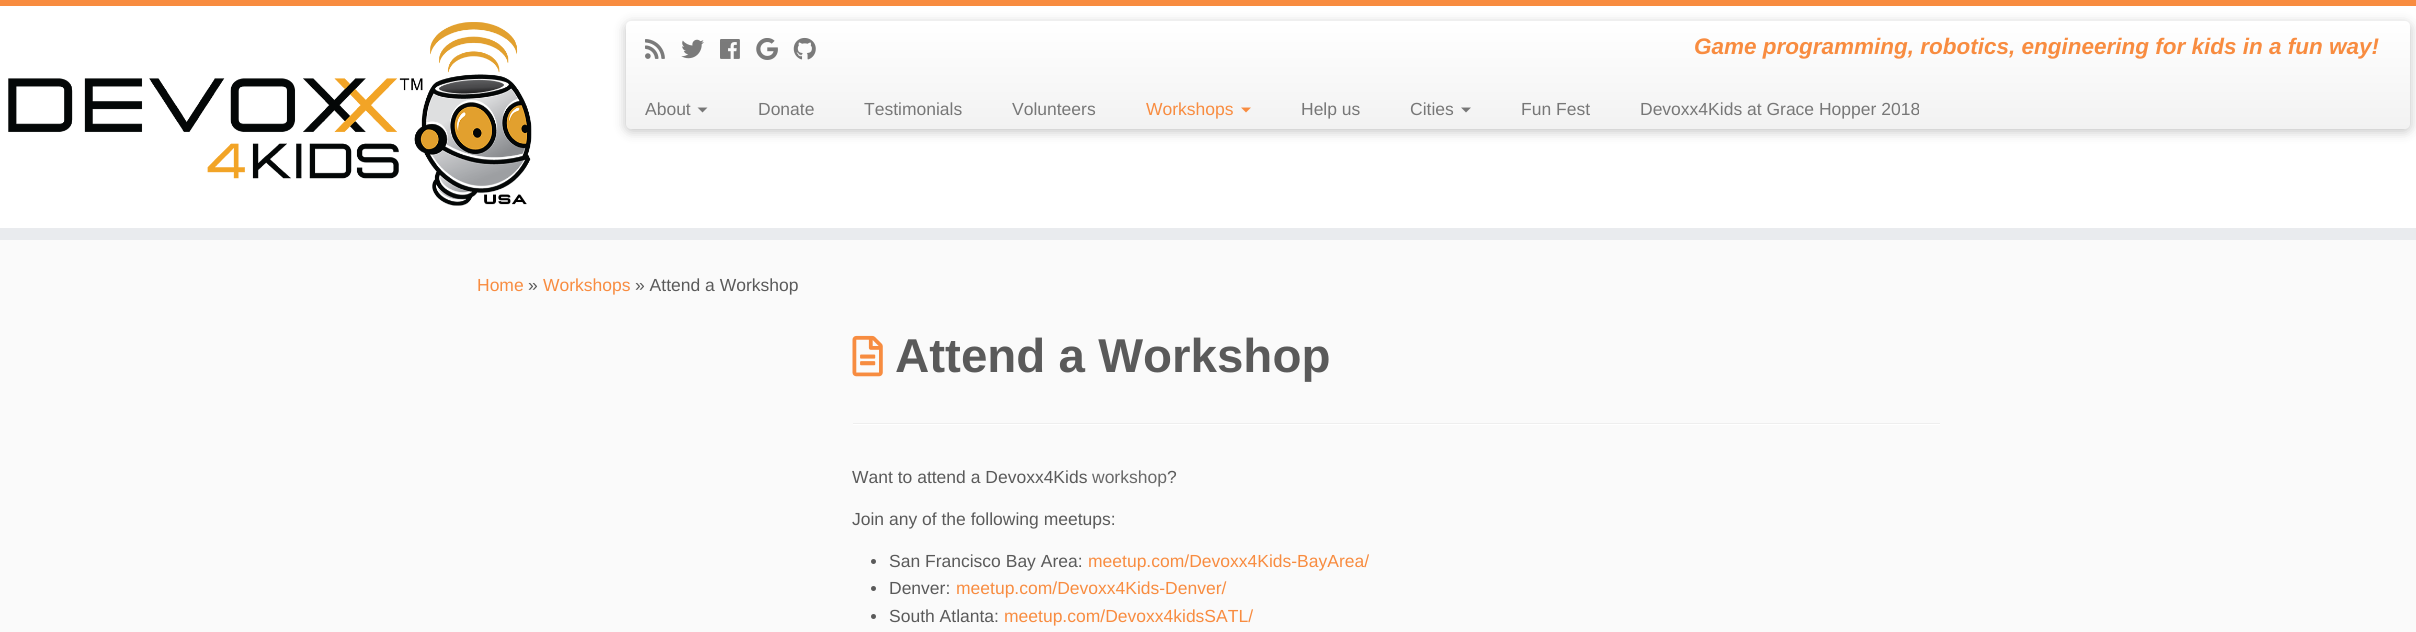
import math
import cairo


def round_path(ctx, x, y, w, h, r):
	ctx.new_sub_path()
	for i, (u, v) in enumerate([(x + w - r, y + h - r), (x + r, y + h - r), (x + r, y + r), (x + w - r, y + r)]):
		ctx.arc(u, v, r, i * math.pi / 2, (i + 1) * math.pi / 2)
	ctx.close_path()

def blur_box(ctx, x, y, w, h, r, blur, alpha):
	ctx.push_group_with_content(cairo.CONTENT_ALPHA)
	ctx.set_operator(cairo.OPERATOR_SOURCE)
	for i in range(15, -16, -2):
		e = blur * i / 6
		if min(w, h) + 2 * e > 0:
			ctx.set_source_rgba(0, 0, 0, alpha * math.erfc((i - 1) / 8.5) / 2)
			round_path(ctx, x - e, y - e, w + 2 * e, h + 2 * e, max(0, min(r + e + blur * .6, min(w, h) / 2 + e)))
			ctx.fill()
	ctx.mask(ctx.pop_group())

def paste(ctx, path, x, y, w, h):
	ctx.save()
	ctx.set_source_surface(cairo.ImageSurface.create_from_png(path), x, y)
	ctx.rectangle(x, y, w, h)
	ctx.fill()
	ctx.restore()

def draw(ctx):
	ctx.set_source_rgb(0.98, 0.98, 0.98)
	ctx.paint()
	ctx.set_source_rgb(1, 1, 1)
	ctx.rectangle(0, 6, 2416, 222)
	ctx.fill()
	ctx.set_source_rgb(0.969, 0.549, 0.251)
	ctx.rectangle(0, 0, 2416, 6)
	ctx.fill()
	ctx.set_source_rgb(0.914, 0.918, 0.933)
	ctx.rectangle(0, 228, 2416, 12)
	ctx.fill()
	paste(ctx, 'media/1.png', 8, 22, 524, 184)
	ctx.set_source_rgb(0, 0, 0)
	blur_box(ctx, 626, 24, 1784, 107, 5, 6, 0.25)
	gradient = cairo.LinearGradient(1518, 21, 1518, 129)
	gradient.add_color_stop_rgba(0, 1, 1, 1, 1)
	gradient.add_color_stop_rgba(1, 0.949, 0.949, 0.949, 1)
	ctx.set_source(gradient)
	round_path(ctx, 626, 21, 1784, 108, 5)
	ctx.fill()
	paste(ctx, 'media/2.png', 645, 39, 20, 20)
	paste(ctx, 'media/3.png', 681, 39, 23, 20)
	paste(ctx, 'media/4.png', 720, 39, 20, 20)
	paste(ctx, 'media/5.png', 756, 38, 22, 22)
	paste(ctx, 'media/6.png', 793, 37, 23, 23)
	ctx.select_font_face('Liberation Sans', cairo.FONT_SLANT_ITALIC, cairo.FONT_WEIGHT_BOLD)
	ctx.set_font_size(22.5)
	ctx.set_source_rgb(0.969, 0.549, 0.251)
	ctx.move_to(1694, 54)
	ctx.show_text('Game programming, robotics, engineering for kids in a fun way!')
	ctx.select_font_face('Liberation Sans')
	ctx.set_font_size(17.5)
	ctx.set_source_rgb(0.467, 0.467, 0.467)
	ctx.move_to(645, 115)
	ctx.show_text('About')
	ctx.new_path()
	ctx.move_to(697.5, 107.5)
	ctx.line_to(707.5, 107.5)
	ctx.line_to(702.5, 112.5)
	ctx.close_path()
	ctx.fill()
	for x, y, s in [
		(758, 115, 'Donate'),
		(864, 115, 'Testimonials'),
		(1012, 115, 'Volunteers'),
	]:
		ctx.move_to(x, y)
		ctx.show_text(s)
	ctx.set_source_rgb(0.969, 0.549, 0.251)
	ctx.move_to(1146, 115)
	ctx.show_text('Workshops')
	ctx.new_path()
	ctx.move_to(1241, 107.5)
	ctx.line_to(1251, 107.5)
	ctx.line_to(1246, 112.5)
	ctx.close_path()
	ctx.fill()
	ctx.set_source_rgb(0.467, 0.467, 0.467)
	ctx.move_to(1301, 115)
	ctx.show_text('Help us')
	ctx.move_to(1410, 115)
	ctx.show_text('Cities')
	ctx.new_path()
	ctx.move_to(1461, 107.5)
	ctx.line_to(1471, 107.5)
	ctx.line_to(1466, 112.5)
	ctx.close_path()
	ctx.fill()
	ctx.move_to(1521, 115)
	ctx.show_text('Fun Fest')
	ctx.move_to(1640, 115)
	ctx.show_text('Devoxx4Kids at Grace Hopper 2018')
	ctx.set_source_rgb(0.969, 0.549, 0.251)
	ctx.move_to(477, 291)
	ctx.show_text('Home')
	ctx.set_source_rgb(0.353, 0.353, 0.353)
	ctx.move_to(528, 291)
	ctx.show_text('»')
	ctx.set_source_rgb(0.969, 0.549, 0.251)
	ctx.move_to(543, 291)
	ctx.show_text('Workshops')
	ctx.set_source_rgb(0.353, 0.353, 0.353)
	ctx.move_to(635, 291)
	ctx.show_text('» Attend a Workshop')
	paste(ctx, 'media/7.png', 852, 335, 31, 42)
	ctx.select_font_face('Liberation Sans', cairo.FONT_SLANT_NORMAL, cairo.FONT_WEIGHT_BOLD)
	ctx.set_font_size(47.5)
	ctx.move_to(895, 372)
	ctx.show_text('Attend a Workshop')
	ctx.set_source_rgb(0.933, 0.933, 0.933)
	ctx.rectangle(853, 423, 1087, 1)
	ctx.fill()
	ctx.set_source_rgb(1, 1, 1)
	ctx.rectangle(853, 424, 1087, 1)
	ctx.fill()
	ctx.select_font_face('Liberation Sans')
	ctx.set_font_size(17.5)
	ctx.set_source_rgb(0.353, 0.353, 0.353)
	ctx.move_to(852, 483)
	ctx.show_text('Want to attend a Devoxx4Kids')
	ctx.set_source_rgb(0.412, 0.412, 0.412)
	ctx.move_to(1092, 483)
	ctx.show_text('workshop')
	ctx.set_source_rgb(0.353, 0.353, 0.353)
	ctx.move_to(1167, 483)
	ctx.show_text('?')
	ctx.move_to(852, 525)
	ctx.show_text('Join any of the following meetups:')
	ctx.new_path()
	ctx.arc(873.5, 561.5, 2.5, 0, 2 * math.pi)
	ctx.fill()
	ctx.move_to(889, 567)
	ctx.show_text('San Francisco Bay Area:')
	ctx.set_source_rgb(0.969, 0.549, 0.251)
	ctx.move_to(1088, 567)
	ctx.show_text('meetup.com/Devoxx4Kids-BayArea/')
	ctx.set_source_rgb(0.353, 0.353, 0.353)
	ctx.new_path()
	ctx.arc(873.5, 588.5, 2.5, 0, 2 * math.pi)
	ctx.fill()
	ctx.move_to(889, 594)
	ctx.show_text('Denver:')
	ctx.set_source_rgb(0.969, 0.549, 0.251)
	ctx.move_to(956, 594)
	ctx.show_text('meetup.com/Devoxx4Kids-Denver/')
	ctx.set_source_rgb(0.353, 0.353, 0.353)
	ctx.new_path()
	ctx.arc(873.5, 616.5, 2.5, 0, 2 * math.pi)
	ctx.fill()
	ctx.move_to(889, 622)
	ctx.show_text('South Atlanta:')
	ctx.set_source_rgb(0.969, 0.549, 0.251)
	ctx.move_to(1004, 622)
	ctx.show_text('meetup.com/Devoxx4kidsSATL/')


surface = cairo.ImageSurface(cairo.FORMAT_RGB24, 2416, 632)
ctx = cairo.Context(surface)
options = cairo.FontOptions()
options.set_hint_metrics(cairo.HINT_METRICS_OFF)
options.set_hint_style(cairo.HINT_STYLE_NONE)
ctx.set_font_options(options)
ctx.set_miter_limit(4)
draw(ctx)
surface.write_to_png('image.png')
